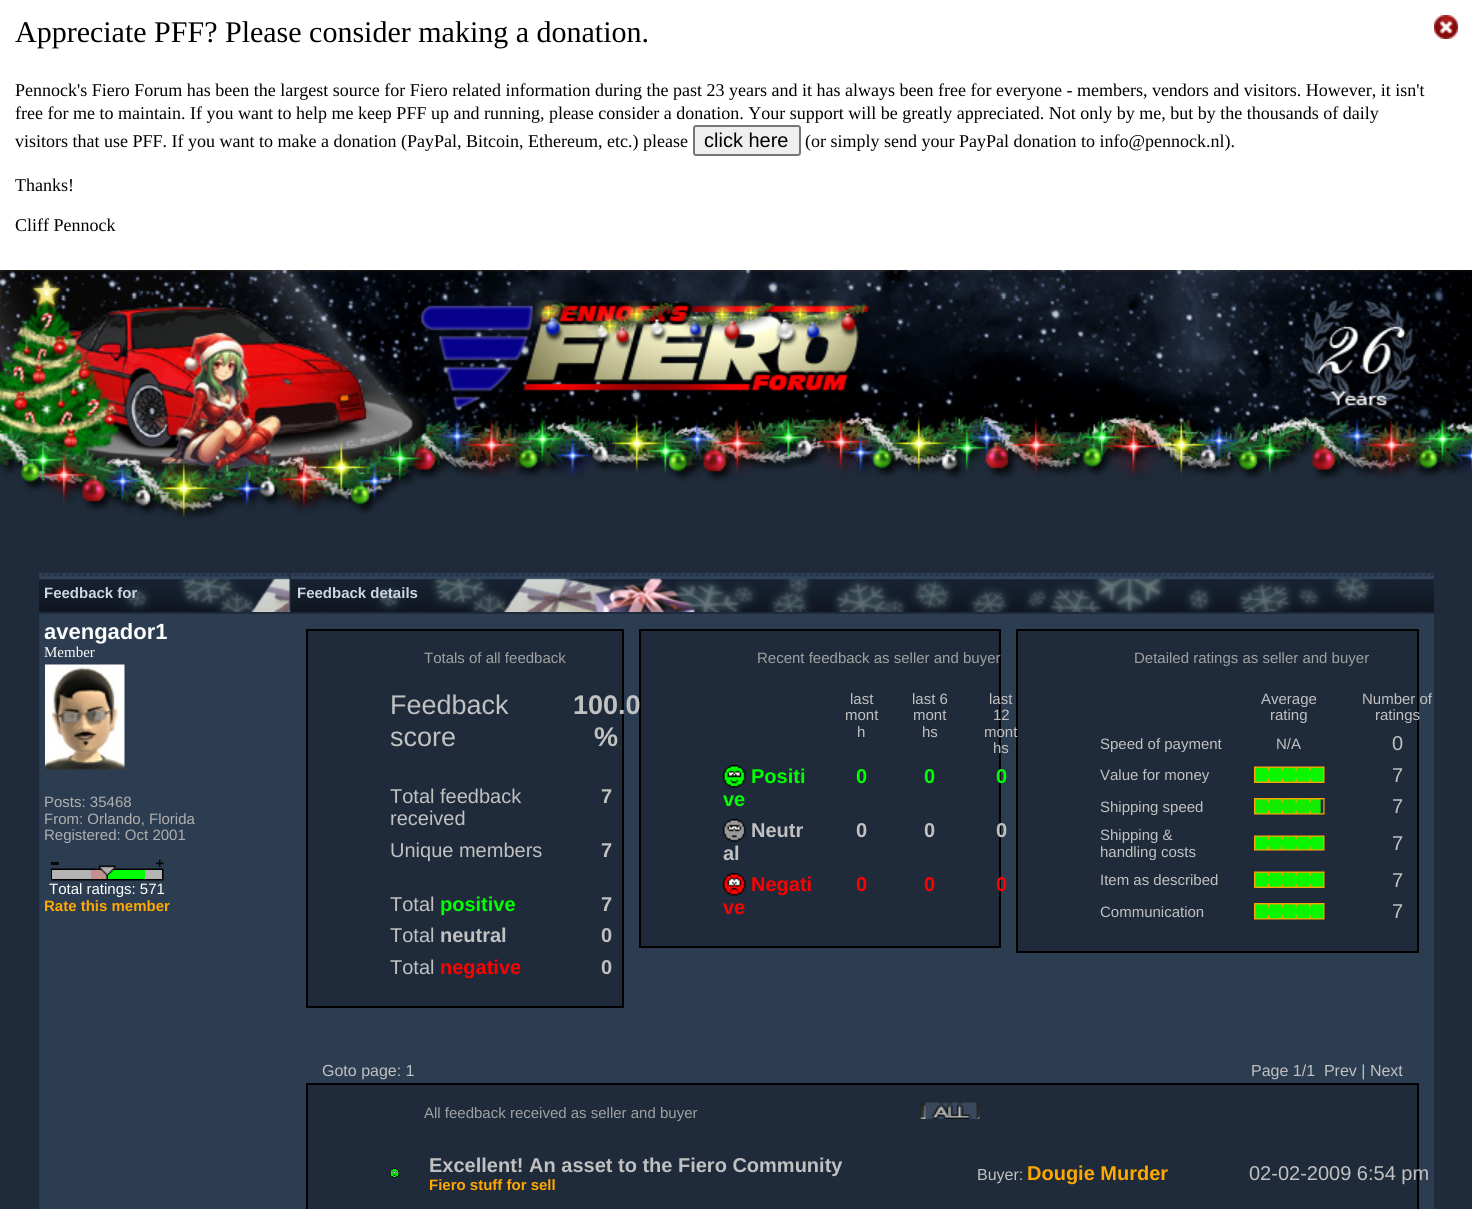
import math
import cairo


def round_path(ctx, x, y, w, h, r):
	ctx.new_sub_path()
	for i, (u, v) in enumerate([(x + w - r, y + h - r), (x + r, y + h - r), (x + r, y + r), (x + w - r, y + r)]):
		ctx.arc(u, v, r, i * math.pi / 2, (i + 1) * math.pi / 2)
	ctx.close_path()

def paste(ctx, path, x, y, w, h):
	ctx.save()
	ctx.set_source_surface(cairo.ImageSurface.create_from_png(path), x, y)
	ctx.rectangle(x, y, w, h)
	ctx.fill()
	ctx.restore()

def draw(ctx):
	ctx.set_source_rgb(0.122, 0.169, 0.227)
	ctx.paint()
	ctx.set_source_rgb(1, 1, 1)
	ctx.rectangle(0, 0, 1472, 270)
	ctx.fill()
	ctx.select_font_face('Liberation Serif')
	ctx.set_font_size(30)
	ctx.set_source_rgb(0, 0, 0)
	ctx.move_to(15, 42)
	ctx.show_text('Appreciate PFF? Please consider making a donation.')
	paste(ctx, 'media/1.png', 1434, 15, 24, 24)
	ctx.set_font_size(18)
	for x, y, s in [
		(15, 96, 'Pennock\'s Fiero Forum has been the largest source for Fiero related information during the past 23 years and it has always been free for everyone - members, vendors and visitors. However, it isn\'t'),
		(15, 119, 'free for me to maintain. If you want to help me keep PFF up and running, please consider a donation. Your support will be greatly appreciated. Not only by me, but by the thousands of daily'),
		(15, 147, 'visitors that use PFF. If you want to make a donation (PayPal, Bitcoin, Ethereum, etc.) please'),
	]:
		ctx.move_to(x, y)
		ctx.show_text(s)
	ctx.set_source_rgb(0.937, 0.937, 0.937)
	round_path(ctx, 694, 126, 106, 29, 2)
	ctx.fill_preserve()
	ctx.set_source_rgb(0.463, 0.463, 0.463)
	ctx.stroke()
	ctx.select_font_face('Liberation Sans')
	ctx.set_font_size(20)
	ctx.set_source_rgb(0, 0, 0)
	ctx.move_to(704, 147)
	ctx.show_text('click here')
	ctx.select_font_face('Liberation Serif')
	ctx.set_font_size(18)
	for x, y, s in [
		(805, 147, '(or simply send your PayPal donation to info@pennock.nl).'),
		(15, 191, 'Thanks!'),
		(15, 231, 'Cliff Pennock'),
	]:
		ctx.move_to(x, y)
		ctx.show_text(s)
	paste(ctx, 'media/2.png', 0, 270, 1472, 27)
	paste(ctx, 'media/3.png', 0, 297, 1472, 225)
	paste(ctx, 'media/4.png', 39, 573, 251, 39)
	ctx.select_font_face('Liberation Sans', cairo.FONT_SLANT_NORMAL, cairo.FONT_WEIGHT_BOLD)
	ctx.set_font_size(15)
	ctx.set_source_rgb(0.8, 0.835, 0.882)
	ctx.move_to(44, 598)
	ctx.show_text('Feedback for')
	paste(ctx, 'media/5.png', 291, 573, 1143, 39)
	ctx.move_to(297, 598)
	ctx.show_text('Feedback details')
	ctx.set_source_rgb(0.176, 0.239, 0.318)
	ctx.rectangle(39, 614, 1395, 595)
	ctx.fill()
	ctx.set_font_size(22)
	ctx.set_source_rgb(1, 1, 1)
	ctx.move_to(44, 639)
	ctx.show_text('avengador1')
	ctx.select_font_face('Liberation Serif')
	ctx.set_font_size(15)
	ctx.move_to(44, 657)
	ctx.show_text('Member')
	paste(ctx, 'media/6.png', 45, 664, 80, 106)
	ctx.select_font_face('Liberation Sans')
	ctx.set_source_rgb(0.686, 0.686, 0.686)
	for x, y, s in [
		(44, 807, 'Posts: 35468'),
		(44, 824, 'From: Orlando, Florida'),
		(44, 840, 'Registered: Oct 2001'),
	]:
		ctx.move_to(x, y)
		ctx.show_text(s)
	ctx.set_source_rgb(0.024, 0.031, 0.043)
	ctx.rectangle(51, 862, 8, 3)
	ctx.fill()
	paste(ctx, 'media/7.png', 156, 859, 8, 9)
	paste(ctx, 'media/9.png', 51, 868, 113, 2)
	ctx.set_source_rgb(0.765, 0.565, 0.565)
	ctx.rectangle(91, 870, 16, 9)
	ctx.fill()
	ctx.set_source_rgb(0, 1, 0)
	ctx.rectangle(108, 870, 37, 9)
	ctx.fill()
	paste(ctx, 'media/12.png', 106, 874, 2, 5)
	paste(ctx, 'media/8.png', 99, 865, 17, 11)
	paste(ctx, 'media/10.png', 51, 870, 1, 9)
	ctx.set_source_rgb(0.706, 0.706, 0.706)
	ctx.rectangle(52, 870, 39, 9)
	ctx.fill()
	ctx.rectangle(145, 870, 17, 9)
	ctx.fill()
	paste(ctx, 'media/11.png', 162, 870, 2, 9)
	paste(ctx, 'media/13.png', 51, 879, 113, 2)
	ctx.set_source_rgb(1, 1, 1)
	ctx.move_to(49, 894)
	ctx.show_text('Total ratings: 571')
	ctx.select_font_face('Liberation Sans', cairo.FONT_SLANT_NORMAL, cairo.FONT_WEIGHT_BOLD)
	ctx.set_source_rgb(1, 0.659, 0)
	ctx.move_to(44, 911)
	ctx.show_text('Rate this member')
	ctx.set_source_rgb(0.122, 0.169, 0.227)
	ctx.rectangle(307, 630, 316, 377)
	ctx.fill_preserve()
	ctx.set_source_rgb(0, 0, 0)
	ctx.stroke()
	ctx.select_font_face('Liberation Sans')
	ctx.set_source_rgb(0.627, 0.627, 0.627)
	ctx.move_to(424, 663)
	ctx.show_text('Totals of all feedback')
	ctx.set_font_size(27)
	ctx.set_source_rgb(0.757, 0.757, 0.757)
	ctx.move_to(390, 714)
	ctx.show_text('Feedback')
	ctx.move_to(390, 746)
	ctx.show_text('score')
	ctx.set_source_rgb(0.122, 0.169, 0.227)
	ctx.rectangle(640, 630, 360, 317)
	ctx.fill_preserve()
	ctx.set_source_rgb(0, 0, 0)
	ctx.stroke()
	ctx.select_font_face('Liberation Sans', cairo.FONT_SLANT_NORMAL, cairo.FONT_WEIGHT_BOLD)
	ctx.set_source_rgb(0.757, 0.757, 0.757)
	ctx.move_to(573, 714)
	ctx.show_text('100.0')
	ctx.move_to(594, 746)
	ctx.show_text('%')
	ctx.select_font_face('Liberation Sans')
	ctx.set_font_size(20)
	ctx.move_to(390, 803)
	ctx.show_text('Total feedback')
	ctx.move_to(390, 825)
	ctx.show_text('received')
	ctx.select_font_face('Liberation Sans', cairo.FONT_SLANT_NORMAL, cairo.FONT_WEIGHT_BOLD)
	ctx.move_to(601, 803)
	ctx.show_text('7')
	ctx.select_font_face('Liberation Sans')
	ctx.move_to(390, 857)
	ctx.show_text('Unique members')
	ctx.select_font_face('Liberation Sans', cairo.FONT_SLANT_NORMAL, cairo.FONT_WEIGHT_BOLD)
	ctx.move_to(601, 857)
	ctx.show_text('7')
	ctx.select_font_face('Liberation Sans')
	ctx.move_to(390, 911)
	ctx.show_text('Total')
	ctx.select_font_face('Liberation Sans', cairo.FONT_SLANT_NORMAL, cairo.FONT_WEIGHT_BOLD)
	ctx.set_source_rgb(0, 1, 0)
	ctx.move_to(440, 911)
	ctx.show_text('positive')
	ctx.set_source_rgb(0.757, 0.757, 0.757)
	ctx.move_to(601, 911)
	ctx.show_text('7')
	ctx.select_font_face('Liberation Sans')
	ctx.move_to(390, 942)
	ctx.show_text('Total')
	ctx.select_font_face('Liberation Sans', cairo.FONT_SLANT_NORMAL, cairo.FONT_WEIGHT_BOLD)
	ctx.move_to(440, 942)
	ctx.show_text('neutral')
	ctx.move_to(601, 942)
	ctx.show_text('0')
	ctx.select_font_face('Liberation Sans')
	ctx.move_to(390, 974)
	ctx.show_text('Total')
	ctx.select_font_face('Liberation Sans', cairo.FONT_SLANT_NORMAL, cairo.FONT_WEIGHT_BOLD)
	ctx.set_source_rgb(1, 0, 0)
	ctx.move_to(440, 974)
	ctx.show_text('negative')
	ctx.set_source_rgb(0.757, 0.757, 0.757)
	ctx.move_to(601, 974)
	ctx.show_text('0')
	ctx.select_font_face('Liberation Sans')
	ctx.set_font_size(15)
	ctx.set_source_rgb(0.627, 0.627, 0.627)
	ctx.move_to(757, 663)
	ctx.show_text('Recent feedback as seller and buyer')
	ctx.set_source_rgb(0.757, 0.757, 0.757)
	for x, y, s in [
		(850, 704, 'last'),
		(845, 720, 'mont'),
		(857, 737, 'h'),
		(912, 704, 'last 6'),
		(913, 720, 'mont'),
		(922, 737, 'hs'),
		(989, 704, 'last'),
		(993, 720, '12'),
	]:
		ctx.move_to(x, y)
		ctx.show_text(s)
	ctx.set_source_rgb(0.122, 0.169, 0.227)
	ctx.rectangle(1017, 630, 401, 322)
	ctx.fill_preserve()
	ctx.set_source_rgb(0, 0, 0)
	ctx.stroke()
	ctx.set_source_rgb(0.757, 0.757, 0.757)
	ctx.move_to(984, 737)
	ctx.show_text('mont')
	ctx.move_to(993, 753)
	ctx.show_text('hs')
	paste(ctx, 'media/14.png', 723, 765, 23, 23)
	ctx.select_font_face('Liberation Sans', cairo.FONT_SLANT_NORMAL, cairo.FONT_WEIGHT_BOLD)
	ctx.set_font_size(20)
	ctx.set_source_rgb(0, 1, 0)
	for x, y, s in [
		(751, 783, 'Positi'),
		(723, 806, 've'),
		(856, 783, '0'),
		(924, 783, '0'),
		(996, 783, '0'),
	]:
		ctx.move_to(x, y)
		ctx.show_text(s)
	paste(ctx, 'media/15.png', 723, 819, 23, 23)
	ctx.set_source_rgb(0.757, 0.757, 0.757)
	for x, y, s in [
		(751, 837, 'Neutr'),
		(723, 860, 'al'),
		(856, 837, '0'),
		(924, 837, '0'),
		(996, 837, '0'),
	]:
		ctx.move_to(x, y)
		ctx.show_text(s)
	paste(ctx, 'media/16.png', 723, 873, 23, 23)
	ctx.set_source_rgb(1, 0, 0)
	for x, y, s in [
		(751, 891, 'Negati'),
		(723, 914, 've'),
		(856, 891, '0'),
		(924, 891, '0'),
		(996, 891, '0'),
	]:
		ctx.move_to(x, y)
		ctx.show_text(s)
	ctx.select_font_face('Liberation Sans')
	ctx.set_font_size(15)
	ctx.set_source_rgb(0.627, 0.627, 0.627)
	ctx.move_to(1134, 663)
	ctx.show_text('Detailed ratings as seller and buyer')
	ctx.set_source_rgb(0.757, 0.757, 0.757)
	for x, y, s in [
		(1261, 704, 'Average'),
		(1270, 720, 'rating'),
		(1362, 704, 'Number of'),
		(1375, 720, 'ratings'),
		(1100, 749, 'Speed of payment'),
		(1276, 749, 'N/A'),
	]:
		ctx.move_to(x, y)
		ctx.show_text(s)
	ctx.set_font_size(20)
	ctx.move_to(1392, 750)
	ctx.show_text('0')
	ctx.set_font_size(15)
	ctx.move_to(1100, 780)
	ctx.show_text('Value for money')
	paste(ctx, 'media/17.png', 1254, 766, 71, 17)
	ctx.set_font_size(20)
	ctx.move_to(1392, 782)
	ctx.show_text('7')
	ctx.set_font_size(15)
	ctx.move_to(1100, 812)
	ctx.show_text('Shipping speed')
	paste(ctx, 'media/18.png', 1254, 798, 71, 17)
	ctx.set_font_size(20)
	ctx.move_to(1392, 813)
	ctx.show_text('7')
	ctx.set_font_size(15)
	ctx.move_to(1100, 840)
	ctx.show_text('Shipping &')
	ctx.move_to(1100, 857)
	ctx.show_text('handling costs')
	paste(ctx, 'media/19.png', 1254, 835, 71, 16)
	ctx.set_font_size(20)
	ctx.move_to(1392, 850)
	ctx.show_text('7')
	ctx.set_font_size(15)
	ctx.move_to(1100, 885)
	ctx.show_text('Item as described')
	paste(ctx, 'media/17.png', 1254, 871, 71, 17)
	ctx.set_font_size(20)
	ctx.move_to(1392, 887)
	ctx.show_text('7')
	ctx.set_font_size(15)
	ctx.move_to(1100, 917)
	ctx.show_text('Communication')
	paste(ctx, 'media/20.png', 1254, 903, 71, 17)
	ctx.set_font_size(20)
	ctx.move_to(1392, 918)
	ctx.show_text('7')
	ctx.set_font_size(16)
	ctx.move_to(322, 1076)
	ctx.show_text('Goto page: 1')
	ctx.move_to(1251, 1076)
	ctx.show_text('Page 1/1  Prev | Next')
	ctx.set_source_rgb(0.122, 0.169, 0.227)
	ctx.rectangle(307, 1084, 1111, 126)
	ctx.fill_preserve()
	ctx.set_source_rgb(0, 0, 0)
	ctx.stroke()
	ctx.set_font_size(15)
	ctx.set_source_rgb(0.627, 0.627, 0.627)
	ctx.move_to(424, 1118)
	ctx.show_text('All feedback received as seller and buyer')
	paste(ctx, 'media/21.png', 919, 1102, 61, 16)
	paste(ctx, 'media/22.png', 919, 1104, 61, 15)
	paste(ctx, 'media/23.png', 390, 1168, 9, 10)
	ctx.select_font_face('Liberation Sans', cairo.FONT_SLANT_NORMAL, cairo.FONT_WEIGHT_BOLD)
	ctx.set_font_size(20)
	ctx.set_source_rgb(0.757, 0.757, 0.757)
	ctx.move_to(429, 1172)
	ctx.show_text('Excellent! An asset to the Fiero Community')
	ctx.set_font_size(15)
	ctx.set_source_rgb(1, 0.659, 0)
	ctx.move_to(429, 1190)
	ctx.show_text('Fiero stuff for sell')
	ctx.select_font_face('Liberation Sans')
	ctx.set_font_size(16)
	ctx.set_source_rgb(0.757, 0.757, 0.757)
	ctx.move_to(977, 1180)
	ctx.show_text('Buyer:')
	ctx.select_font_face('Liberation Sans', cairo.FONT_SLANT_NORMAL, cairo.FONT_WEIGHT_BOLD)
	ctx.set_font_size(20)
	ctx.set_source_rgb(1, 0.659, 0)
	ctx.move_to(1027, 1180)
	ctx.show_text('Dougie Murder')
	ctx.select_font_face('Liberation Sans')
	ctx.set_source_rgb(0.757, 0.757, 0.757)
	ctx.move_to(1249, 1180)
	ctx.show_text('02-02-2009 6:54 pm')


surface = cairo.ImageSurface(cairo.FORMAT_RGB24, 1472, 1209)
ctx = cairo.Context(surface)
options = cairo.FontOptions()
options.set_hint_metrics(cairo.HINT_METRICS_OFF)
options.set_hint_style(cairo.HINT_STYLE_NONE)
ctx.set_font_options(options)
ctx.set_miter_limit(4)
draw(ctx)
surface.write_to_png('image.png')
